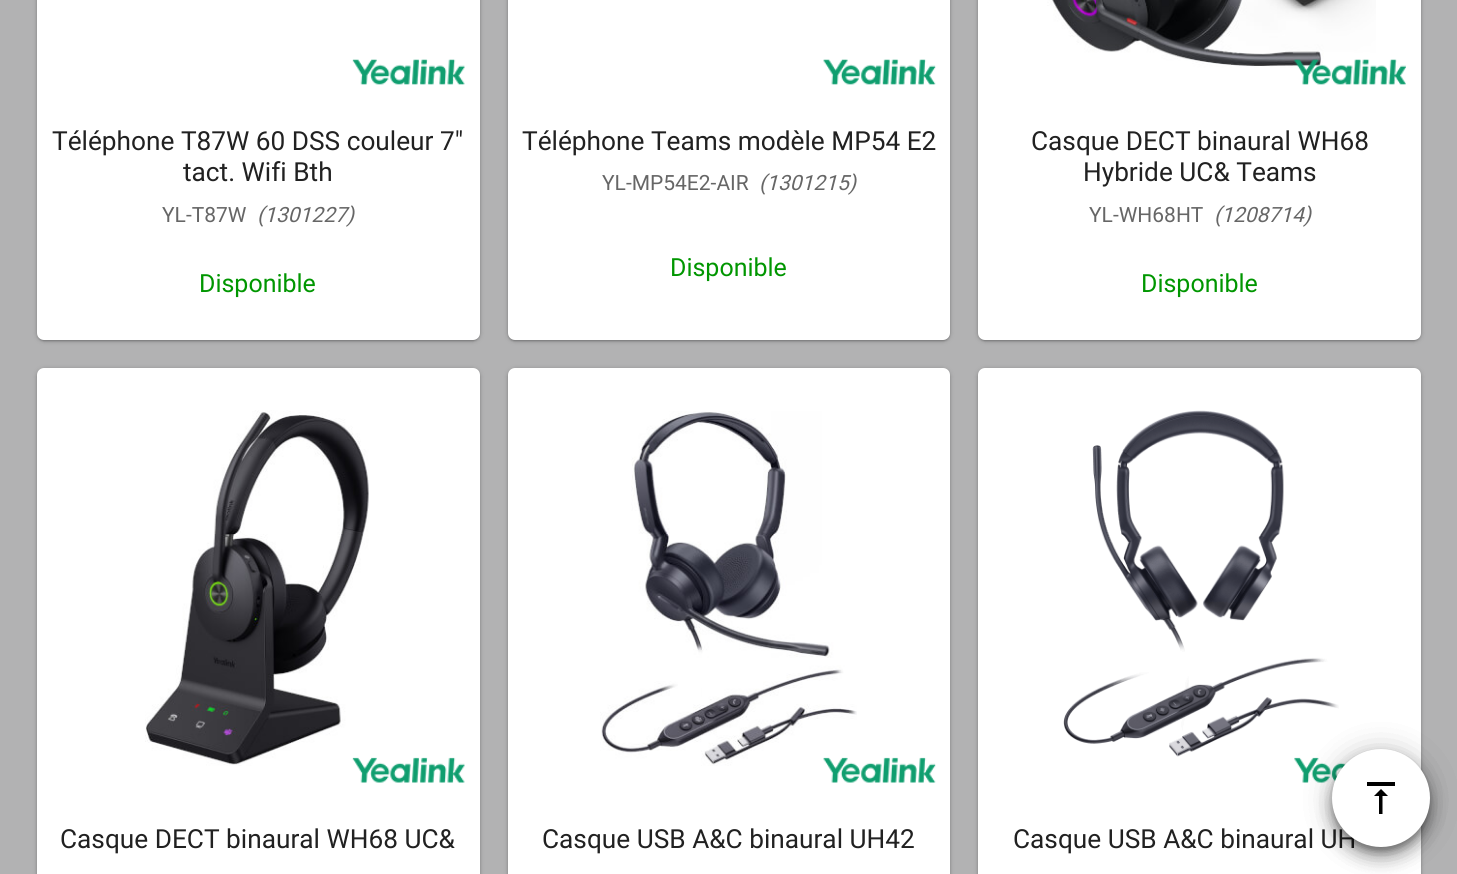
import math
import cairo


def round_path(ctx, x, y, w, h, r):
	ctx.new_sub_path()
	for i, (u, v) in enumerate([(x + w - r, y + h - r), (x + r, y + h - r), (x + r, y + r), (x + w - r, y + r)]):
		ctx.arc(u, v, r, i * math.pi / 2, (i + 1) * math.pi / 2)
	ctx.close_path()

def blur_box(ctx, x, y, w, h, r, blur, alpha):
	ctx.push_group_with_content(cairo.CONTENT_ALPHA)
	ctx.set_operator(cairo.OPERATOR_SOURCE)
	for i in range(15, -16, -2):
		e = blur * i / 6
		if min(w, h) + 2 * e > 0:
			ctx.set_source_rgba(0, 0, 0, alpha * math.erfc((i - 1) / 8.5) / 2)
			round_path(ctx, x - e, y - e, w + 2 * e, h + 2 * e, max(0, min(r + e + blur * .6, min(w, h) / 2 + e)))
			ctx.fill()
	ctx.mask(ctx.pop_group())

def paste(ctx, path, x, y, w, h):
	ctx.save()
	ctx.set_source_surface(cairo.ImageSurface.create_from_png(path), x, y)
	ctx.rectangle(x, y, w, h)
	ctx.fill()
	ctx.restore()

def draw(ctx):
	ctx.set_source_rgb(0.698, 0.698, 0.702)
	ctx.paint()
	ctx.set_source_rgb(0, 0, 0)
	blur_box(ctx, 37, -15, 443, 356, 7, 2.5, 0.2)
	blur_box(ctx, 39, -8, 439, 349, 5, 1, 0.12)
	blur_box(ctx, 37, -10, 443, 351, 7, 1, 0.14)
	ctx.set_source_rgb(1, 1, 1)
	round_path(ctx, 37, -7, 443, 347, 7)
	ctx.fill()
	paste(ctx, 'media/1.png', 352, 59, 113, 26)
	ctx.select_font_face('Roboto')
	ctx.set_font_size(26.25)
	ctx.set_source_rgb(0.129, 0.129, 0.129)
	ctx.move_to(52, 150)
	ctx.show_text('Téléphone T87W 60 DSS couleur 7"')
	ctx.move_to(183, 181)
	ctx.show_text('tact. Wifi Bth')
	ctx.set_font_size(21)
	ctx.set_source_rgb(0.4, 0.4, 0.4)
	ctx.move_to(162, 222)
	ctx.show_text('YL-T87W')
	ctx.select_font_face('Roboto', cairo.FONT_SLANT_ITALIC)
	ctx.move_to(257, 222)
	ctx.show_text('(1301227)')
	ctx.select_font_face('Roboto')
	ctx.set_font_size(25)
	ctx.set_source_rgb(0, 0.588, 0)
	ctx.move_to(199, 292)
	ctx.show_text('Disponible')
	ctx.set_source_rgb(0, 0, 0)
	blur_box(ctx, 508, -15, 442, 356, 7, 2.5, 0.2)
	blur_box(ctx, 509, -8, 440, 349, 5, 1, 0.12)
	blur_box(ctx, 508, -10, 442, 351, 7, 1, 0.14)
	ctx.set_source_rgb(1, 1, 1)
	round_path(ctx, 508, -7, 442, 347, 7)
	ctx.fill()
	paste(ctx, 'media/2.png', 823, 59, 113, 26)
	ctx.set_font_size(26.25)
	ctx.set_source_rgb(0.129, 0.129, 0.129)
	ctx.move_to(522, 150)
	ctx.show_text('Téléphone Teams modèle MP54 E2')
	ctx.set_font_size(21)
	ctx.set_source_rgb(0.4, 0.4, 0.4)
	ctx.move_to(602, 190)
	ctx.show_text('YL-MP54E2-AIR')
	ctx.select_font_face('Roboto', cairo.FONT_SLANT_ITALIC)
	ctx.move_to(759, 190)
	ctx.show_text('(1301215)')
	ctx.select_font_face('Roboto')
	ctx.set_font_size(25)
	ctx.set_source_rgb(0, 0.588, 0)
	ctx.move_to(670, 276)
	ctx.show_text('Disponible')
	ctx.set_source_rgb(0, 0, 0)
	blur_box(ctx, 978, -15, 443, 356, 7, 2.5, 0.2)
	blur_box(ctx, 980, -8, 439, 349, 5, 1, 0.12)
	blur_box(ctx, 978, -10, 443, 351, 7, 1, 0.14)
	ctx.set_source_rgb(1, 1, 1)
	round_path(ctx, 978, -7, 443, 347, 7)
	ctx.fill()
	paste(ctx, 'media/3.png', 1047, 0, 329, 68)
	paste(ctx, 'media/4.png', 1294, 59, 112, 26)
	ctx.set_font_size(26.25)
	ctx.set_source_rgb(0.129, 0.129, 0.129)
	ctx.move_to(1031, 150)
	ctx.show_text('Casque DECT binaural WH68')
	ctx.move_to(1083, 181)
	ctx.show_text('Hybride UC& Teams')
	ctx.set_font_size(21)
	ctx.set_source_rgb(0.4, 0.4, 0.4)
	ctx.move_to(1089, 222)
	ctx.show_text('YL-WH68HT')
	ctx.select_font_face('Roboto', cairo.FONT_SLANT_ITALIC)
	ctx.move_to(1214, 222)
	ctx.show_text('(1208714)')
	ctx.select_font_face('Roboto')
	ctx.set_font_size(25)
	ctx.set_source_rgb(0, 0.588, 0)
	ctx.move_to(1141, 292)
	ctx.show_text('Disponible')
	ctx.set_source_rgb(0, 0, 0)
	blur_box(ctx, 37, 369, 443, 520, 7, 2.5, 0.2)
	blur_box(ctx, 37, 369, 443, 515, 7, 1, 0.14)
	ctx.set_source_rgb(1, 1, 1)
	round_path(ctx, 37, 368, 443, 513, 7)
	ctx.fill()
	paste(ctx, 'media/5.png', 145, 410, 224, 356)
	paste(ctx, 'media/6.png', 352, 757, 113, 26)
	ctx.set_font_size(26.25)
	ctx.set_source_rgb(0.129, 0.129, 0.129)
	ctx.move_to(60, 848)
	ctx.show_text('Casque DECT binaural WH68 UC&')
	ctx.set_source_rgb(0, 0, 0)
	blur_box(ctx, 508, 369, 442, 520, 7, 2.5, 0.2)
	blur_box(ctx, 508, 369, 442, 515, 7, 1, 0.14)
	ctx.set_source_rgb(1, 1, 1)
	round_path(ctx, 508, 368, 442, 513, 7)
	ctx.fill()
	paste(ctx, 'media/7.png', 600, 411, 257, 355)
	paste(ctx, 'media/8.png', 823, 757, 113, 26)
	ctx.set_source_rgb(0.129, 0.129, 0.129)
	ctx.move_to(542, 848)
	ctx.show_text('Casque USB A&C binaural UH42')
	ctx.set_source_rgb(0, 0, 0)
	blur_box(ctx, 978, 369, 443, 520, 7, 2.5, 0.2)
	blur_box(ctx, 978, 369, 443, 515, 7, 1, 0.14)
	ctx.set_source_rgb(1, 1, 1)
	round_path(ctx, 978, 368, 443, 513, 7)
	ctx.fill()
	paste(ctx, 'media/9.png', 1063, 410, 276, 347)
	paste(ctx, 'media/10.png', 1294, 757, 53, 26)
	ctx.set_source_rgb(0.129, 0.129, 0.129)
	ctx.move_to(1013, 848)
	ctx.show_text('Casque USB A&C binaural UH')
	ctx.set_source_rgb(0, 0, 0)
	blur_box(ctx, 1334, 756, 94, 95, 47, 4.5, 0.2)
	blur_box(ctx, 1332, 751, 98, 98, 49, 16, 0.12)
	blur_box(ctx, 1332, 760, 98, 98, 49, 9, 0.14)
	blur_box(ctx, 1334, 756, 94, 95, 47, 4.5, 0.2)
	blur_box(ctx, 1332, 751, 98, 98, 49, 16, 0.12)
	blur_box(ctx, 1332, 760, 98, 98, 49, 9, 0.14)
	ctx.set_source_rgb(1, 1, 1)
	ctx.arc(1381, 798, 49, 0, 2 * math.pi)
	ctx.fill()
	ctx.set_source_rgb(0, 0, 0)
	ctx.new_path()
	ctx.move_to(1374, 796)
	ctx.line_to(1379, 796)
	ctx.line_to(1379, 814)
	ctx.line_to(1382.5, 814)
	ctx.line_to(1382.5, 796)
	ctx.line_to(1388, 796)
	ctx.line_to(1381, 789)
	ctx.close_path()
	ctx.move_to(1367, 782)
	ctx.line_to(1367, 786)
	ctx.line_to(1395, 786)
	ctx.line_to(1395, 782)
	ctx.close_path()
	ctx.fill()


surface = cairo.ImageSurface(cairo.FORMAT_RGB24, 1457, 874)
ctx = cairo.Context(surface)
options = cairo.FontOptions()
options.set_hint_metrics(cairo.HINT_METRICS_OFF)
options.set_hint_style(cairo.HINT_STYLE_NONE)
ctx.set_font_options(options)
ctx.set_miter_limit(4)
draw(ctx)
surface.write_to_png('image.png')
